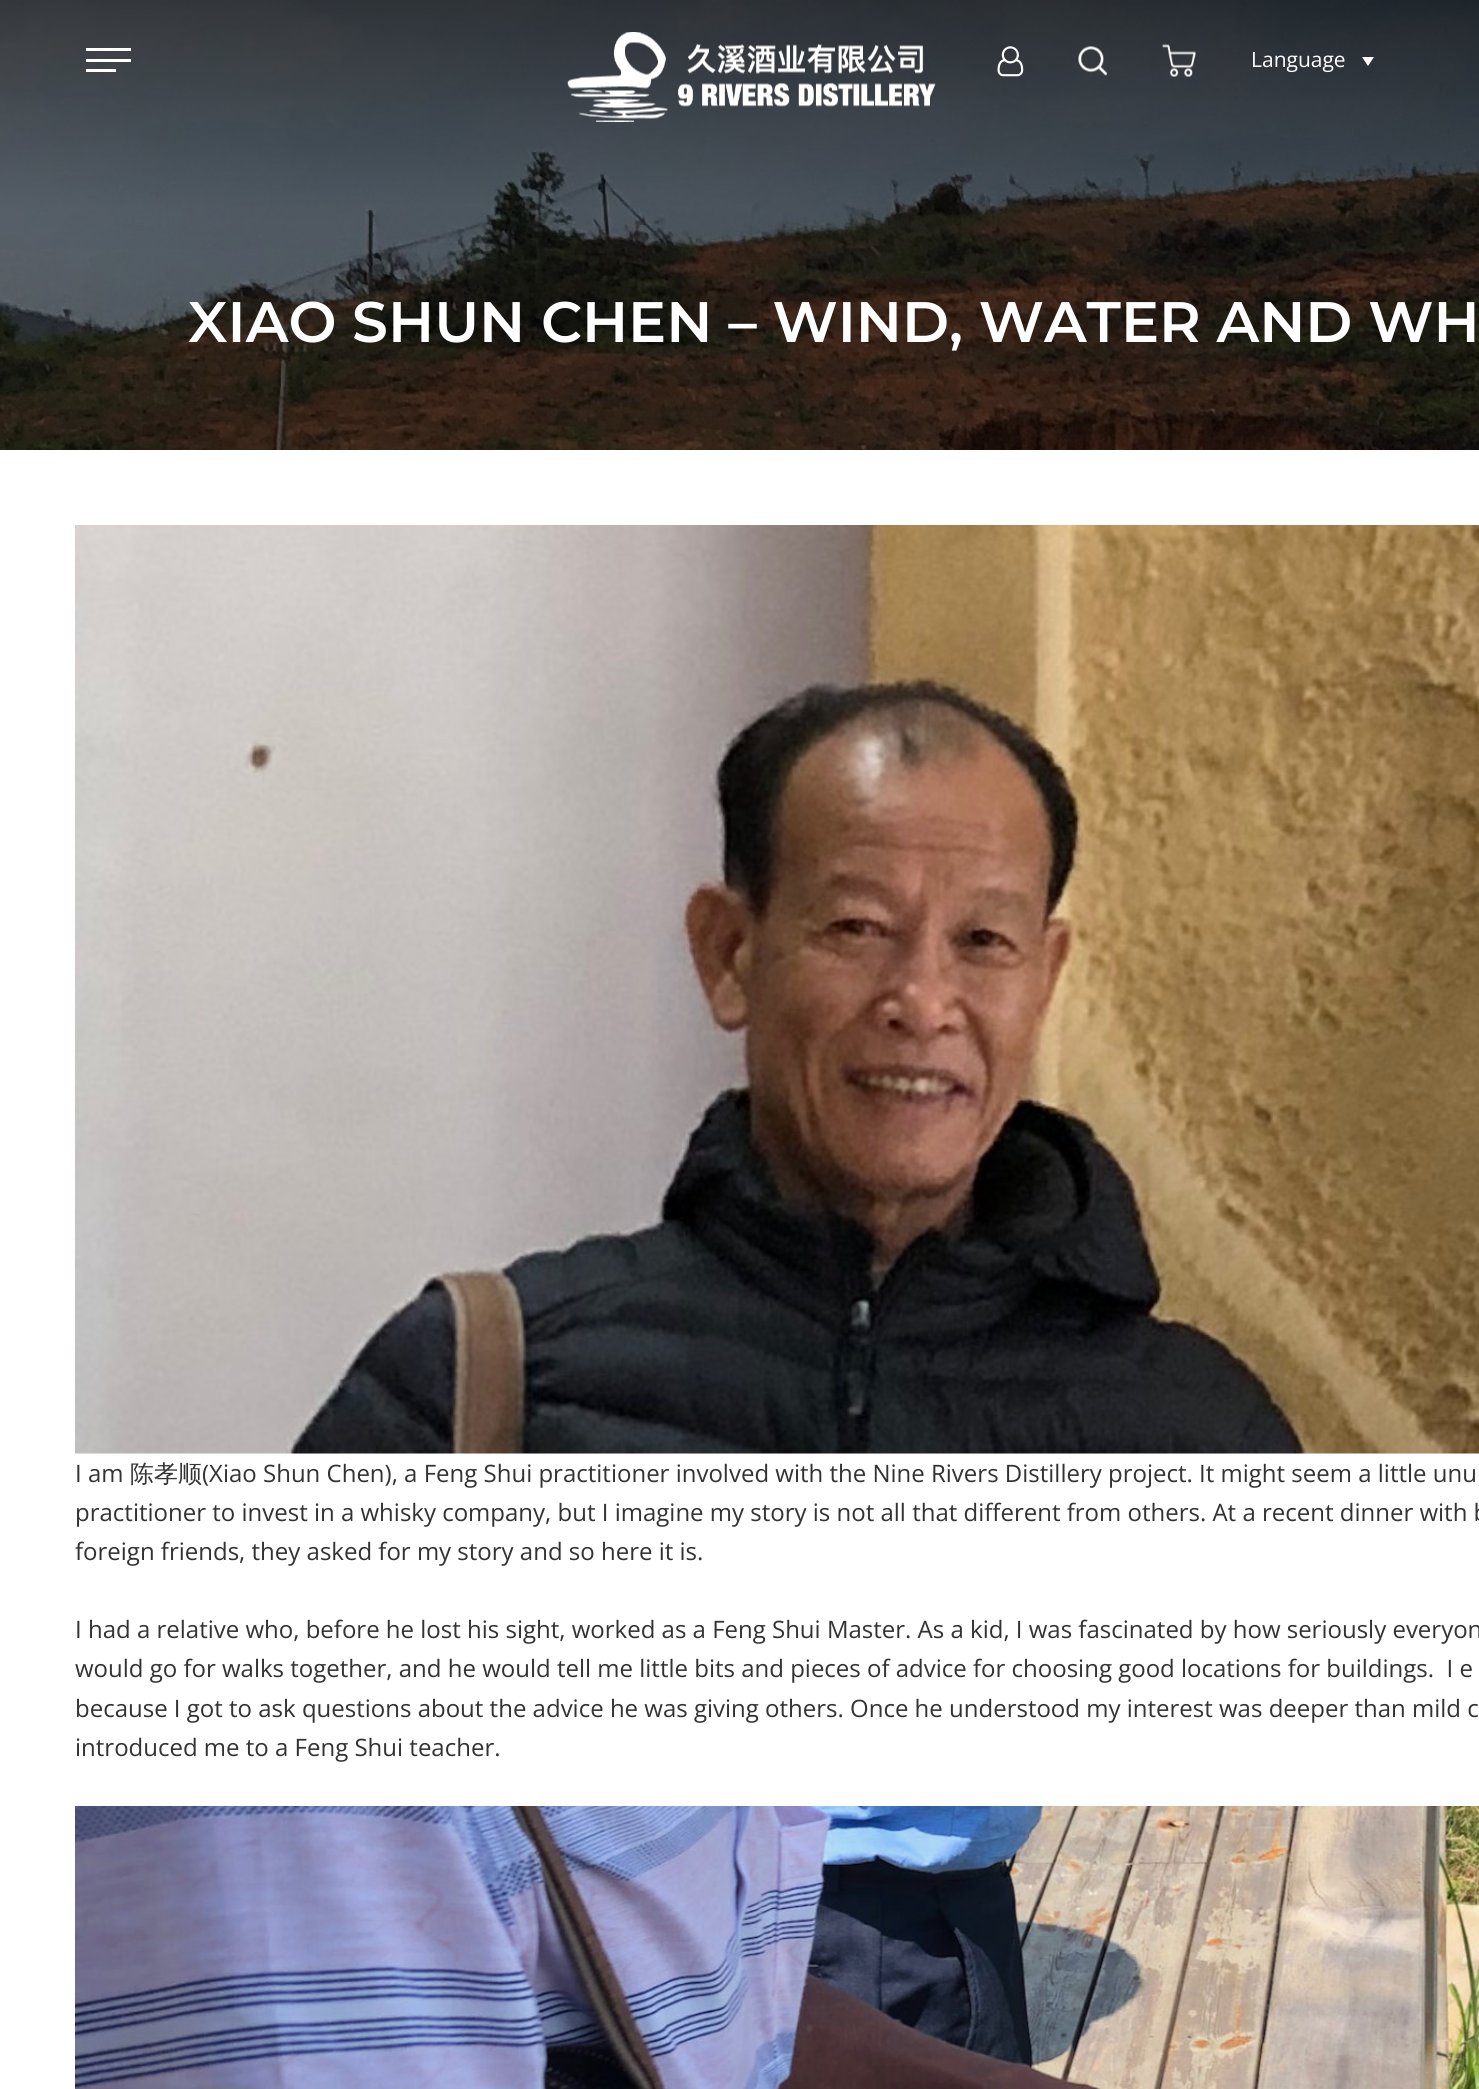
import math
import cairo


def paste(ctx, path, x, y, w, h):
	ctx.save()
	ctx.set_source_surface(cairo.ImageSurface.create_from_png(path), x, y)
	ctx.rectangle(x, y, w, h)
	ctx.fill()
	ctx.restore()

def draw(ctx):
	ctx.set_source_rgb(1, 1, 1)
	ctx.paint()
	paste(ctx, 'media/5.png', 0, 0, 1479, 450)
	ctx.set_source_rgb(1, 1, 1)
	ctx.rectangle(86, 48, 45, 3)
	ctx.rectangle(86, 59, 45, 3)
	ctx.rectangle(86, 69, 30, 3)
	ctx.fill()
	paste(ctx, 'media/1.png', 567, 32, 369, 90)
	paste(ctx, 'media/2.png', 997, 46, 27, 31)
	paste(ctx, 'media/3.png', 1078, 46, 29, 30)
	paste(ctx, 'media/4.png', 1162, 44, 34, 33)
	ctx.select_font_face('Open Sans')
	ctx.set_font_size(21)
	ctx.move_to(1251, 67)
	ctx.show_text('Language')
	ctx.new_path()
	ctx.move_to(1362, 57)
	ctx.line_to(1374, 57)
	ctx.line_to(1368, 66)
	ctx.close_path()
	ctx.fill()
	ctx.select_font_face('Montserrat SemiBold')
	ctx.set_font_size(57)
	ctx.move_to(188, 342)
	ctx.show_text('XIAO SHUN CHEN – WIND, WATER AND WH')
	paste(ctx, 'media/6.png', 75, 525, 1404, 929)
	ctx.select_font_face('Open Sans')
	ctx.set_font_size(24)
	ctx.set_source_rgb(0.2, 0.2, 0.2)
	ctx.move_to(75, 1482)
	ctx.show_text('I am')
	ctx.select_font_face('WenQuanYi Zen Hei Medium')
	ctx.move_to(130, 1482)
	ctx.show_text('陈孝顺')
	ctx.select_font_face('Open Sans')
	for x, y, s in [
		(202, 1482, '(Xiao Shun Chen), a Feng Shui practitioner involved with the Nine Rivers Distillery project. It might seem a little unu'),
		(75, 1521, 'practitioner to invest in a whisky company, but I imagine my story is not all that different from others. At a recent dinner with b'),
		(75, 1560, 'foreign friends, they asked for my story and so here it is.'),
		(75, 1638, 'I had a relative who, before he lost his sight, worked as a Feng Shui Master. As a kid, I was fascinated by how seriously everyon'),
		(75, 1677, 'would go for walks together, and he would tell me little bits and pieces of advice for choosing good locations for buildings.  I e'),
		(75, 1717, 'because I got to ask questions about the advice he was giving others. Once he understood my interest was deeper than mild c'),
		(75, 1756, 'introduced me to a Feng Shui teacher.'),
	]:
		ctx.move_to(x, y)
		ctx.show_text(s)
	paste(ctx, 'media/7.png', 75, 1806, 1404, 283)


surface = cairo.ImageSurface(cairo.FORMAT_RGB24, 1479, 2089)
ctx = cairo.Context(surface)
options = cairo.FontOptions()
options.set_hint_metrics(cairo.HINT_METRICS_OFF)
options.set_hint_style(cairo.HINT_STYLE_NONE)
ctx.set_font_options(options)
ctx.set_miter_limit(4)
draw(ctx)
surface.write_to_png('image.png')
